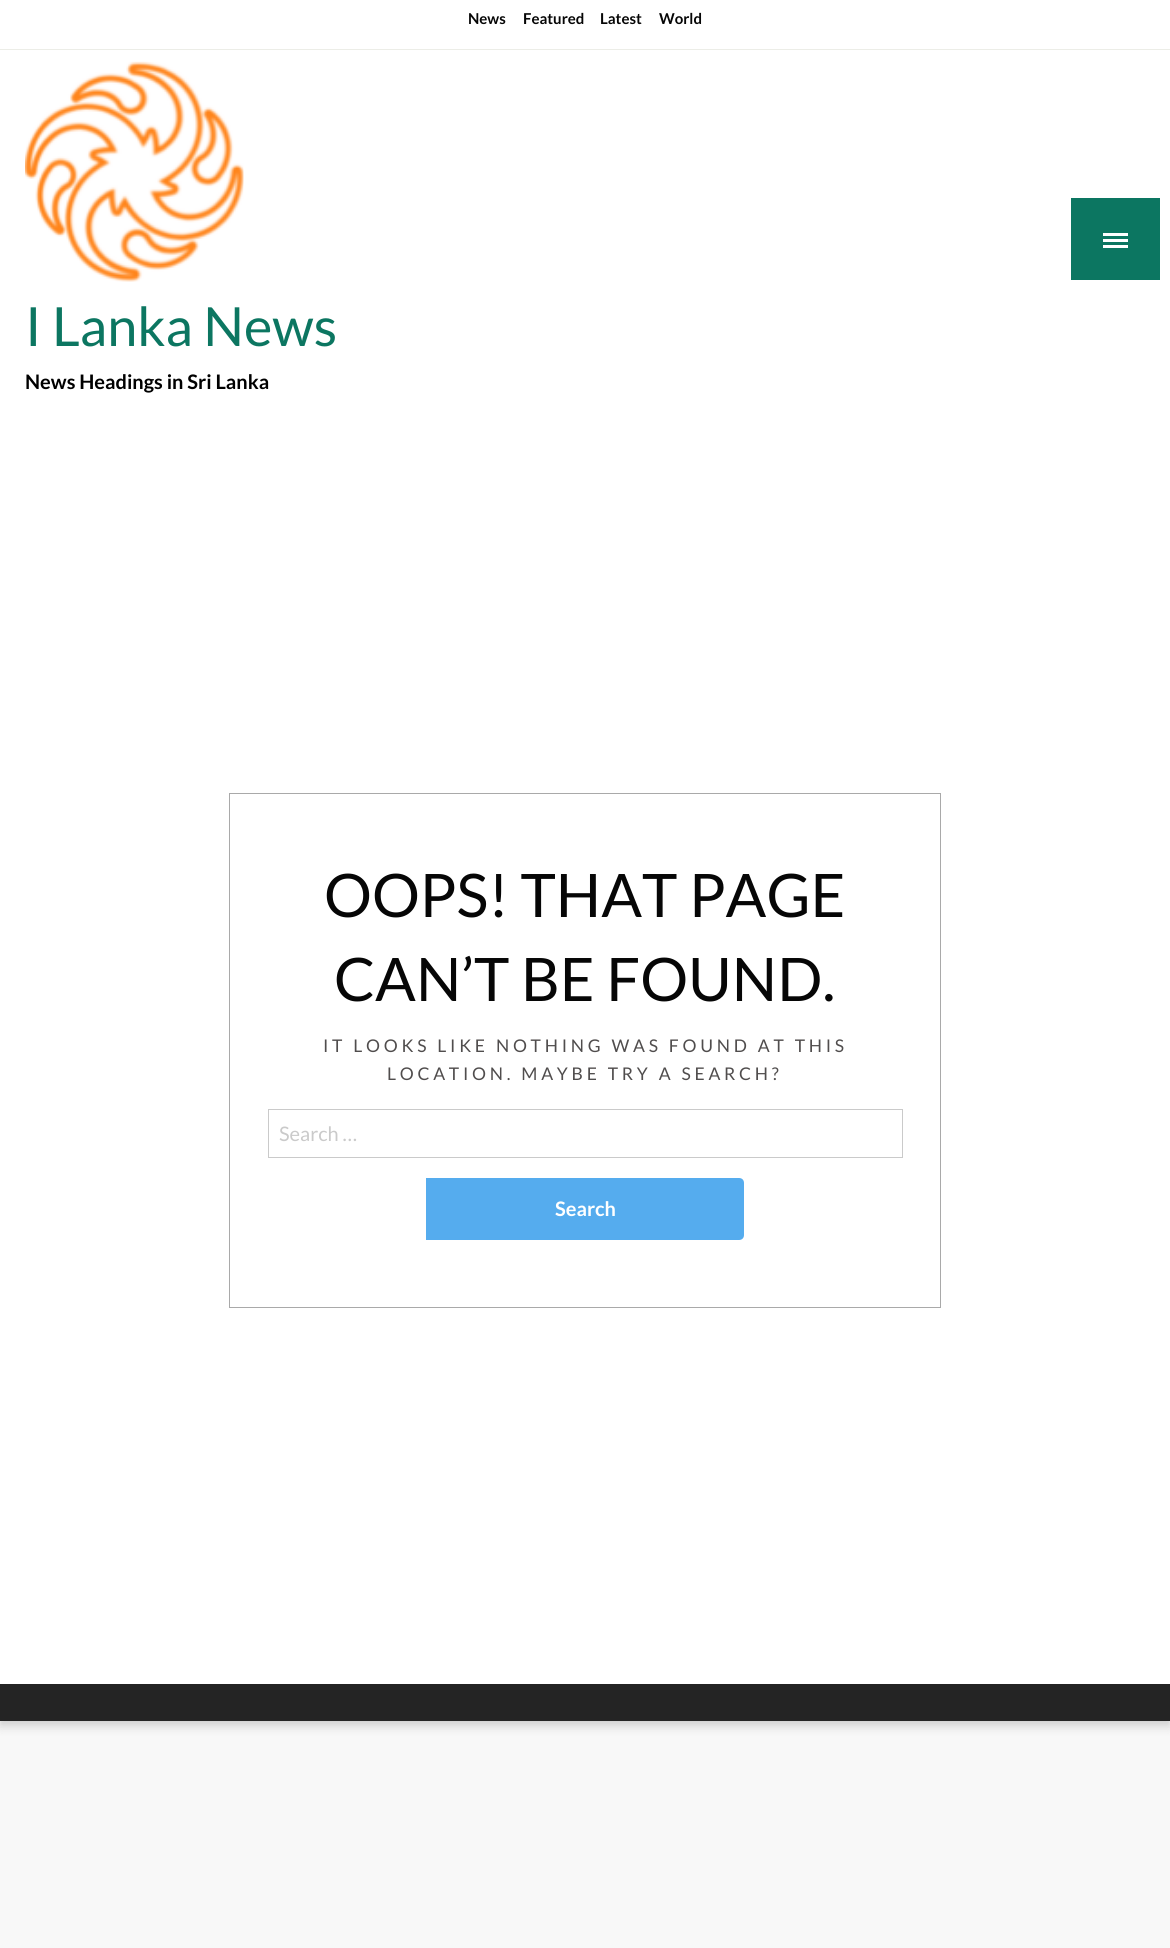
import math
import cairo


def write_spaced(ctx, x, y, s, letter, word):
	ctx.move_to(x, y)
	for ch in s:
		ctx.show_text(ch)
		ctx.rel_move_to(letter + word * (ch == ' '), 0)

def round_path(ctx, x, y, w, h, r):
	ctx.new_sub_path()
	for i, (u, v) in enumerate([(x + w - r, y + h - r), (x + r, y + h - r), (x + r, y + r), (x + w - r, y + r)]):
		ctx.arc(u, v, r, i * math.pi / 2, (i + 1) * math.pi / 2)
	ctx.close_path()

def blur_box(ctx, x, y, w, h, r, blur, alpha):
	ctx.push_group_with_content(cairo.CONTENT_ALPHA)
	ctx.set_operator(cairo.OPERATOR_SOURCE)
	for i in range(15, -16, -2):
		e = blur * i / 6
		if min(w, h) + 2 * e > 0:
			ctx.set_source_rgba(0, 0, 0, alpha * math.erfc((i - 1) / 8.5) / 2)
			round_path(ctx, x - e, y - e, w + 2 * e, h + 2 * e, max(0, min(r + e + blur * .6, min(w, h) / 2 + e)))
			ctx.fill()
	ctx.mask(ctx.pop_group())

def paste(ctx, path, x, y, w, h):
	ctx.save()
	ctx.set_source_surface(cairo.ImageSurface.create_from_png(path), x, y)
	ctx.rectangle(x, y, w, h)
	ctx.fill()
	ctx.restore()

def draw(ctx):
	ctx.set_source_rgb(0.969, 0.969, 0.969)
	ctx.paint()
	ctx.set_source_rgb(0, 0, 0)
	blur_box(ctx, 0, 4, 1170, 1721, 0, 6, 0.09)
	blur_box(ctx, 0, 5, 1170, 1721, 0, 5, 0.1)
	ctx.set_source_rgb(1, 1, 1)
	ctx.rectangle(0, 0, 1170, 49)
	ctx.fill()
	ctx.set_source_rgb(0.925, 0.929, 0.906)
	ctx.rectangle(0, 49, 1170, 1)
	ctx.fill()
	ctx.select_font_face('Lato', cairo.FONT_SLANT_NORMAL, cairo.FONT_WEIGHT_BOLD)
	ctx.set_font_size(15)
	ctx.set_source_rgb(0.024, 0.024, 0.024)
	for x, y, s in [
		(468, 24, 'News'),
		(523, 24, 'Featured'),
		(600, 24, 'Latest'),
		(659, 24, 'World'),
	]:
		ctx.move_to(x, y)
		ctx.show_text(s)
	ctx.set_source_rgb(1, 1, 1)
	ctx.rectangle(0, 50, 1170, 1634)
	ctx.fill()
	ctx.set_source_rgb(0.047, 0.463, 0.38)
	ctx.rectangle(1071, 198, 89, 82)
	ctx.fill()
	ctx.set_source_rgb(1, 1, 1)
	ctx.rectangle(1103, 233, 25, 3)
	ctx.rectangle(1103, 239, 25, 3)
	ctx.rectangle(1103, 245, 25, 3)
	ctx.fill()
	paste(ctx, 'media/1.png', 25, 61, 219, 221)
	ctx.select_font_face('Lato')
	ctx.set_font_size(54)
	ctx.set_source_rgb(0.047, 0.463, 0.38)
	ctx.move_to(25, 346)
	ctx.show_text('I Lanka News')
	ctx.select_font_face('Lato', cairo.FONT_SLANT_NORMAL, cairo.FONT_WEIGHT_BOLD)
	ctx.set_font_size(20)
	ctx.set_source_rgb(0, 0, 0)
	ctx.move_to(25, 389)
	ctx.show_text('News Headings in Sri Lanka')
	ctx.rectangle(229.5, 793.5, 711, 514)
	ctx.set_source_rgb(0.663, 0.663, 0.663)
	ctx.set_line_width(1)
	ctx.stroke()
	ctx.select_font_face('Lato')
	ctx.set_font_size(60)
	ctx.set_source_rgb(0.024, 0.024, 0.024)
	ctx.move_to(324, 917)
	ctx.show_text('OOPS! THAT PAGE')
	ctx.move_to(334, 1001)
	ctx.show_text('CAN’T BE FOUND.')
	ctx.set_font_size(17.5)
	ctx.set_source_rgb(0.314, 0.302, 0.302)
	write_spaced(ctx, 323, 1052, 'IT LOOKS LIKE NOTHING WAS FOUND AT THIS', 3.75, 0)
	write_spaced(ctx, 387, 1080, 'LOCATION. MAYBE TRY A SEARCH?', 3.75, 0)
	ctx.rectangle(268.5, 1109.5, 634, 48)
	ctx.set_source_rgb(0.792, 0.792, 0.792)
	ctx.stroke()
	ctx.set_font_size(20)
	ctx.move_to(279, 1141)
	ctx.show_text('Search …')
	ctx.set_source_rgb(0.333, 0.675, 0.933)
	ctx.new_path()
	ctx.move_to(426, 1178)
	ctx.line_to(739, 1178)
	ctx.curve_to(742, 1178, 744, 1180, 744, 1183)
	ctx.line_to(744, 1235)
	ctx.curve_to(744, 1238, 742, 1240, 739, 1240)
	ctx.line_to(426, 1240)
	ctx.close_path()
	ctx.fill()
	ctx.select_font_face('Lato', cairo.FONT_SLANT_NORMAL, cairo.FONT_WEIGHT_BOLD)
	ctx.set_source_rgb(1, 1, 1)
	ctx.move_to(555, 1216)
	ctx.show_text('Search')
	ctx.set_source_rgb(0.141, 0.141, 0.141)
	ctx.rectangle(0, 1684, 1170, 37)
	ctx.fill()


surface = cairo.ImageSurface(cairo.FORMAT_RGB24, 1170, 1948)
ctx = cairo.Context(surface)
options = cairo.FontOptions()
options.set_hint_metrics(cairo.HINT_METRICS_OFF)
options.set_hint_style(cairo.HINT_STYLE_NONE)
ctx.set_font_options(options)
ctx.set_miter_limit(4)
draw(ctx)
surface.write_to_png('image.png')
